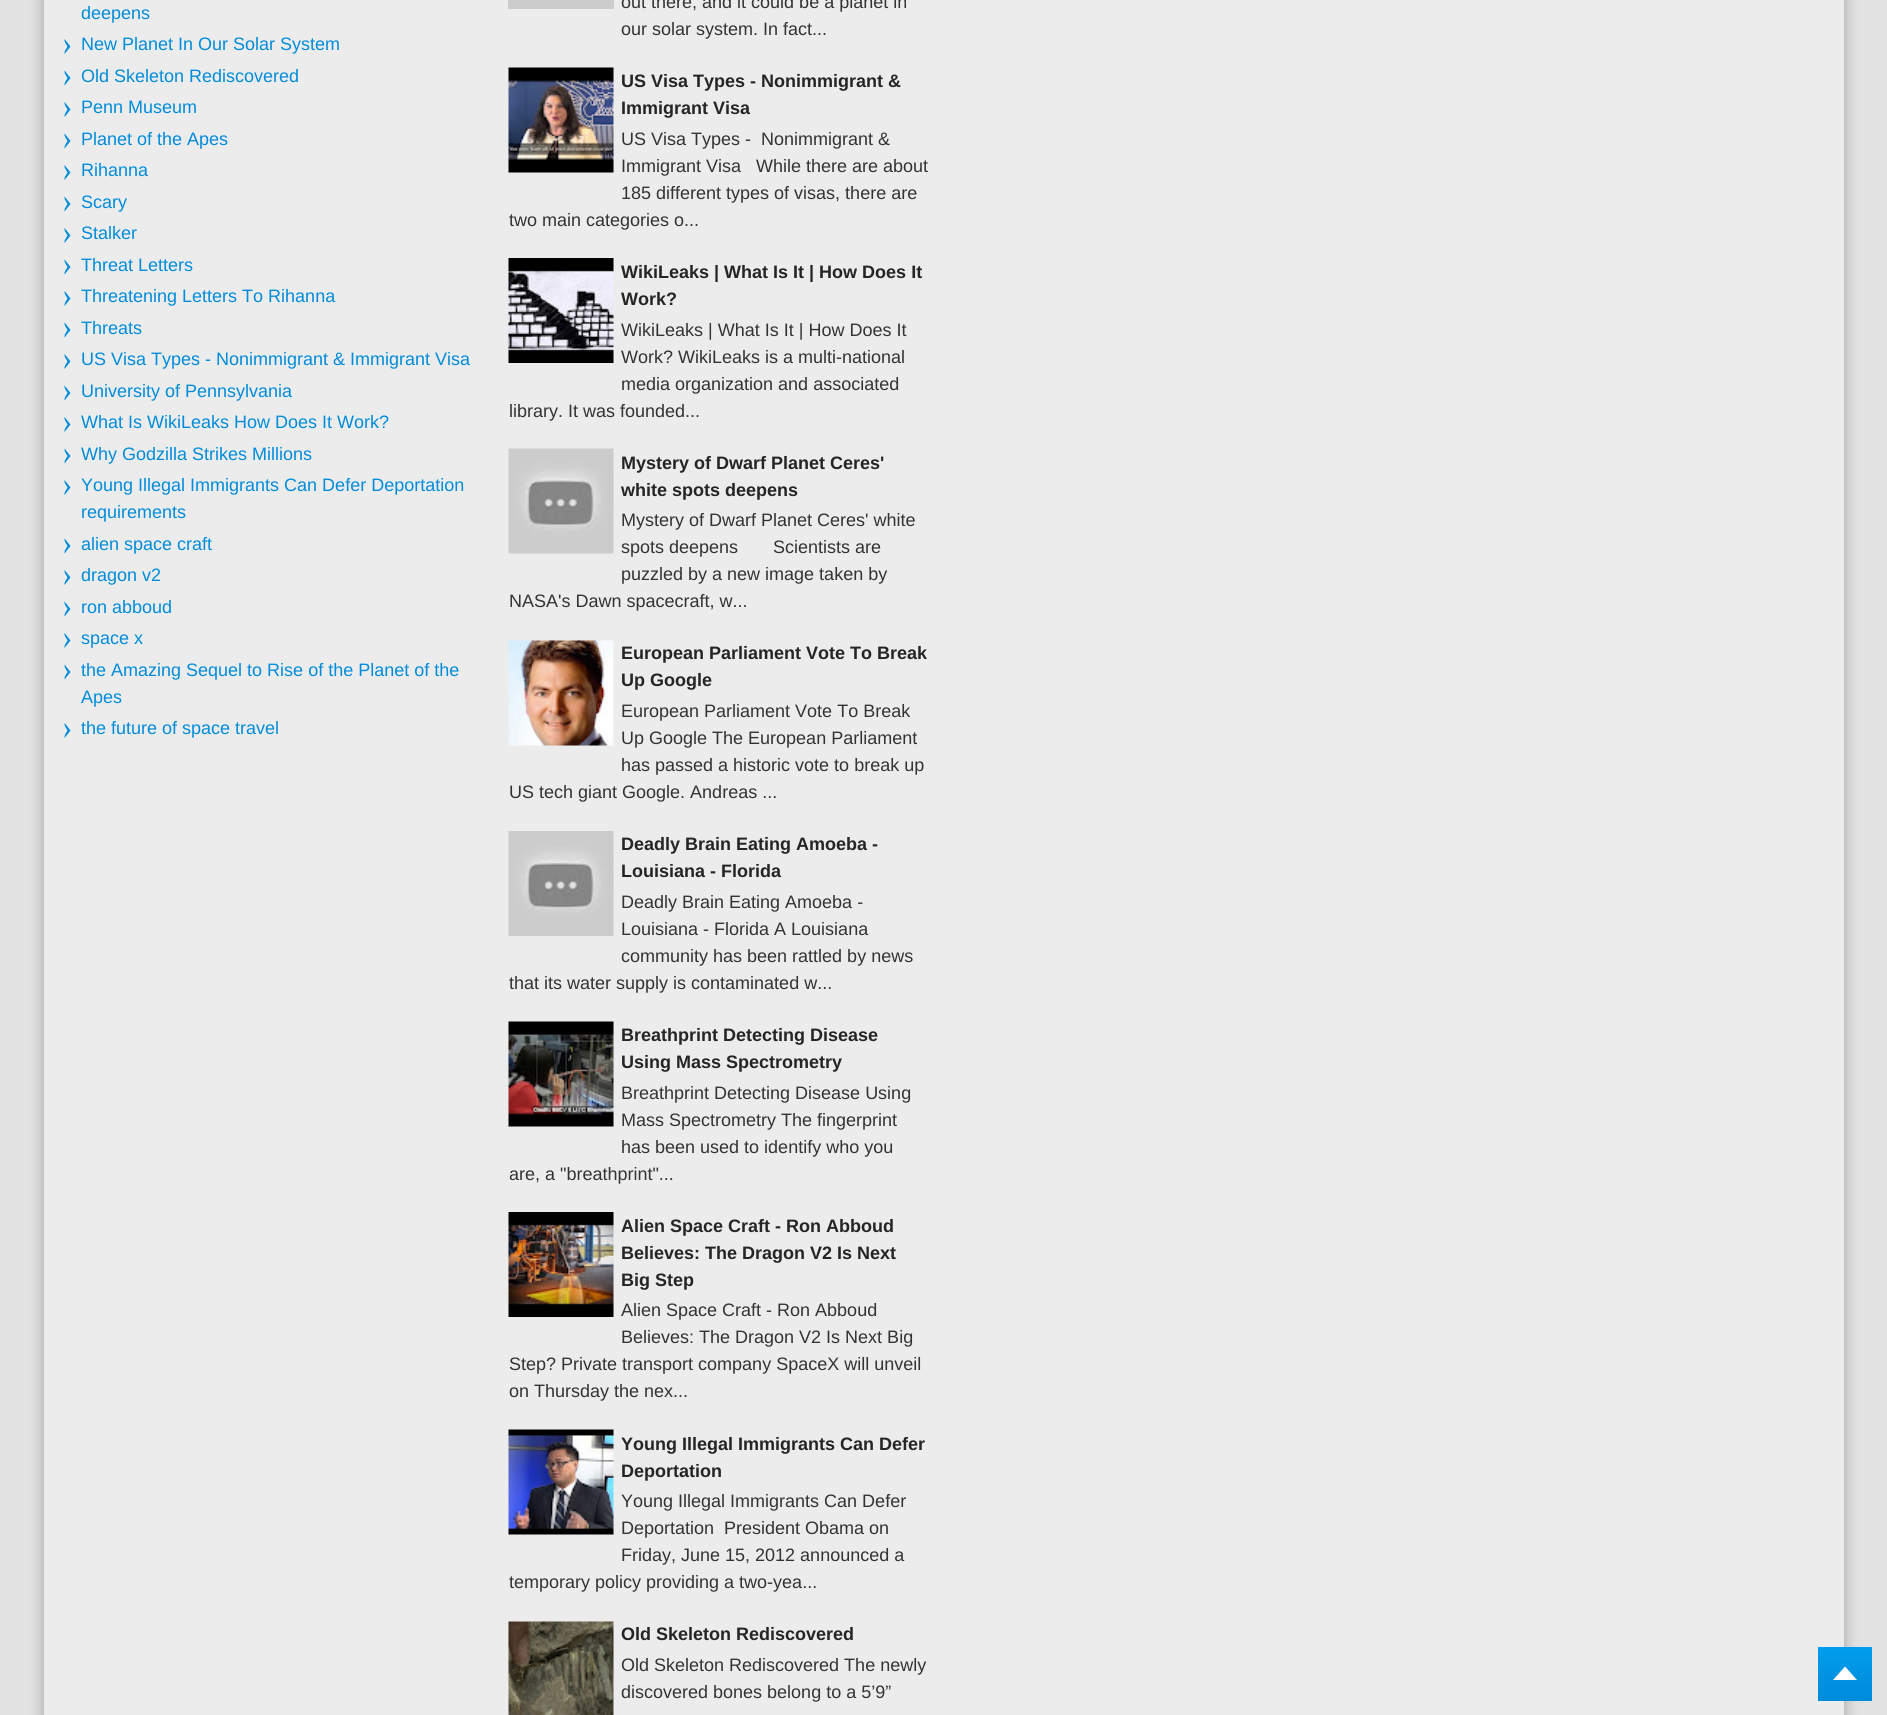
import math
import cairo


def round_path(ctx, x, y, w, h, r):
	ctx.new_sub_path()
	for i, (u, v) in enumerate([(x + w - r, y + h - r), (x + r, y + h - r), (x + r, y + r), (x + w - r, y + r)]):
		ctx.arc(u, v, r, i * math.pi / 2, (i + 1) * math.pi / 2)
	ctx.close_path()

def blur_box(ctx, x, y, w, h, r, blur, alpha):
	ctx.push_group_with_content(cairo.CONTENT_ALPHA)
	ctx.set_operator(cairo.OPERATOR_SOURCE)
	for i in range(15, -16, -2):
		e = blur * i / 6
		if min(w, h) + 2 * e > 0:
			ctx.set_source_rgba(0, 0, 0, alpha * math.erfc((i - 1) / 8.5) / 2)
			round_path(ctx, x - e, y - e, w + 2 * e, h + 2 * e, max(0, min(r + e + blur * .6, min(w, h) / 2 + e)))
			ctx.fill()
	ctx.mask(ctx.pop_group())

def paste(ctx, path, x, y, w, h):
	ctx.save()
	ctx.set_source_surface(cairo.ImageSurface.create_from_png(path), x, y)
	ctx.rectangle(x, y, w, h)
	ctx.fill()
	ctx.restore()

def draw(ctx):
	ctx.set_source_rgb(0.886, 0.886, 0.886)
	ctx.paint()
	ctx.set_source_rgb(0, 0, 0)
	blur_box(ctx, 44, -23, 1800, 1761, 0, 7.5, 0.3)
	ctx.set_source_rgb(0.922, 0.922, 0.922)
	ctx.rectangle(44, 0, 1800, 1715)
	ctx.fill()
	ctx.select_font_face('Liberation Sans')
	ctx.set_font_size(18)
	ctx.set_source_rgb(0, 0.549, 0.859)
	ctx.move_to(81, 19)
	ctx.show_text('deepens')
	ctx.new_path()
	ctx.move_to(64.5, 54)
	ctx.line_to(64.5, 39)
	ctx.line_to(70.5, 46.5)
	ctx.close_path()
	ctx.fill()
	ctx.set_source_rgb(0.922, 0.922, 0.922)
	ctx.new_path()
	ctx.move_to(63, 54)
	ctx.line_to(63, 39)
	ctx.line_to(67.5, 46.5)
	ctx.close_path()
	ctx.fill()
	ctx.set_source_rgb(0, 0.549, 0.859)
	ctx.move_to(81, 50)
	ctx.show_text('New Planet In Our Solar System')
	ctx.new_path()
	ctx.move_to(64.5, 85.5)
	ctx.line_to(64.5, 70.5)
	ctx.line_to(70.5, 78)
	ctx.close_path()
	ctx.fill()
	ctx.set_source_rgb(0.922, 0.922, 0.922)
	ctx.new_path()
	ctx.move_to(63, 85.5)
	ctx.line_to(63, 70.5)
	ctx.line_to(67.5, 78)
	ctx.close_path()
	ctx.fill()
	ctx.set_source_rgb(0, 0.549, 0.859)
	ctx.move_to(81, 82)
	ctx.show_text('Old Skeleton Rediscovered')
	ctx.new_path()
	ctx.move_to(64.5, 117)
	ctx.line_to(64.5, 102)
	ctx.line_to(70.5, 109.5)
	ctx.close_path()
	ctx.fill()
	ctx.set_source_rgb(0.922, 0.922, 0.922)
	ctx.new_path()
	ctx.move_to(63, 117)
	ctx.line_to(63, 102)
	ctx.line_to(67.5, 109.5)
	ctx.close_path()
	ctx.fill()
	ctx.set_source_rgb(0, 0.549, 0.859)
	ctx.move_to(81, 113)
	ctx.show_text('Penn Museum')
	ctx.new_path()
	ctx.move_to(64.5, 148.5)
	ctx.line_to(64.5, 133.5)
	ctx.line_to(70.5, 141)
	ctx.close_path()
	ctx.fill()
	ctx.set_source_rgb(0.922, 0.922, 0.922)
	ctx.new_path()
	ctx.move_to(63, 148.5)
	ctx.line_to(63, 133.5)
	ctx.line_to(67.5, 141)
	ctx.close_path()
	ctx.fill()
	ctx.set_source_rgb(0, 0.549, 0.859)
	ctx.move_to(81, 145)
	ctx.show_text('Planet of the Apes')
	ctx.new_path()
	ctx.move_to(64.5, 180)
	ctx.line_to(64.5, 165)
	ctx.line_to(70.5, 172.5)
	ctx.close_path()
	ctx.fill()
	ctx.set_source_rgb(0.922, 0.922, 0.922)
	ctx.new_path()
	ctx.move_to(63, 180)
	ctx.line_to(63, 165)
	ctx.line_to(67.5, 172.5)
	ctx.close_path()
	ctx.fill()
	ctx.set_source_rgb(0, 0.549, 0.859)
	ctx.move_to(81, 176)
	ctx.show_text('Rihanna')
	ctx.new_path()
	ctx.move_to(64.5, 211.5)
	ctx.line_to(64.5, 196.5)
	ctx.line_to(70.5, 204)
	ctx.close_path()
	ctx.fill()
	ctx.set_source_rgb(0.922, 0.922, 0.922)
	ctx.new_path()
	ctx.move_to(63, 211.5)
	ctx.line_to(63, 196.5)
	ctx.line_to(67.5, 204)
	ctx.close_path()
	ctx.fill()
	ctx.set_source_rgb(0, 0.549, 0.859)
	ctx.move_to(81, 208)
	ctx.show_text('Scary')
	ctx.new_path()
	ctx.move_to(64.5, 243)
	ctx.line_to(64.5, 228)
	ctx.line_to(70.5, 235.5)
	ctx.close_path()
	ctx.fill()
	ctx.set_source_rgb(0.922, 0.922, 0.922)
	ctx.new_path()
	ctx.move_to(63, 243)
	ctx.line_to(63, 228)
	ctx.line_to(67.5, 235.5)
	ctx.close_path()
	ctx.fill()
	ctx.set_source_rgb(0, 0.549, 0.859)
	ctx.move_to(81, 239)
	ctx.show_text('Stalker')
	ctx.new_path()
	ctx.move_to(64.5, 274.5)
	ctx.line_to(64.5, 259.5)
	ctx.line_to(70.5, 267)
	ctx.close_path()
	ctx.fill()
	ctx.set_source_rgb(0.922, 0.922, 0.922)
	ctx.new_path()
	ctx.move_to(63, 274.5)
	ctx.line_to(63, 259.5)
	ctx.line_to(67.5, 267)
	ctx.close_path()
	ctx.fill()
	ctx.set_source_rgb(0, 0.549, 0.859)
	ctx.move_to(81, 271)
	ctx.show_text('Threat Letters')
	ctx.new_path()
	ctx.move_to(64.5, 306)
	ctx.line_to(64.5, 291)
	ctx.line_to(70.5, 298.5)
	ctx.close_path()
	ctx.fill()
	ctx.set_source_rgb(0.922, 0.922, 0.922)
	ctx.new_path()
	ctx.move_to(63, 306)
	ctx.line_to(63, 291)
	ctx.line_to(67.5, 298.5)
	ctx.close_path()
	ctx.fill()
	ctx.set_source_rgb(0, 0.549, 0.859)
	ctx.move_to(81, 302)
	ctx.show_text('Threatening Letters To Rihanna')
	ctx.new_path()
	ctx.move_to(64.5, 337.5)
	ctx.line_to(64.5, 322.5)
	ctx.line_to(70.5, 330)
	ctx.close_path()
	ctx.fill()
	ctx.set_source_rgb(0.922, 0.922, 0.922)
	ctx.new_path()
	ctx.move_to(63, 337.5)
	ctx.line_to(63, 322.5)
	ctx.line_to(67.5, 330)
	ctx.close_path()
	ctx.fill()
	ctx.set_source_rgb(0, 0.549, 0.859)
	ctx.move_to(81, 334)
	ctx.show_text('Threats')
	ctx.new_path()
	ctx.move_to(64.5, 369)
	ctx.line_to(64.5, 354)
	ctx.line_to(70.5, 361.5)
	ctx.close_path()
	ctx.fill()
	ctx.set_source_rgb(0.922, 0.922, 0.922)
	ctx.new_path()
	ctx.move_to(63, 369)
	ctx.line_to(63, 354)
	ctx.line_to(67.5, 361.5)
	ctx.close_path()
	ctx.fill()
	ctx.set_source_rgb(0, 0.549, 0.859)
	ctx.move_to(81, 365)
	ctx.show_text('US Visa Types - Nonimmigrant & Immigrant Visa')
	ctx.new_path()
	ctx.move_to(64.5, 400.5)
	ctx.line_to(64.5, 385.5)
	ctx.line_to(70.5, 393)
	ctx.close_path()
	ctx.fill()
	ctx.set_source_rgb(0.922, 0.922, 0.922)
	ctx.new_path()
	ctx.move_to(63, 400.5)
	ctx.line_to(63, 385.5)
	ctx.line_to(67.5, 393)
	ctx.close_path()
	ctx.fill()
	ctx.set_source_rgb(0, 0.549, 0.859)
	ctx.move_to(81, 397)
	ctx.show_text('University of Pennsylvania')
	ctx.new_path()
	ctx.move_to(64.5, 432)
	ctx.line_to(64.5, 417)
	ctx.line_to(70.5, 424.5)
	ctx.close_path()
	ctx.fill()
	ctx.set_source_rgb(0.922, 0.922, 0.922)
	ctx.new_path()
	ctx.move_to(63, 432)
	ctx.line_to(63, 417)
	ctx.line_to(67.5, 424.5)
	ctx.close_path()
	ctx.fill()
	ctx.set_source_rgb(0, 0.549, 0.859)
	ctx.move_to(81, 428)
	ctx.show_text('What Is WikiLeaks How Does It Work?')
	ctx.new_path()
	ctx.move_to(64.5, 463.5)
	ctx.line_to(64.5, 448.5)
	ctx.line_to(70.5, 456)
	ctx.close_path()
	ctx.fill()
	ctx.set_source_rgb(0.922, 0.922, 0.922)
	ctx.new_path()
	ctx.move_to(63, 463.5)
	ctx.line_to(63, 448.5)
	ctx.line_to(67.5, 456)
	ctx.close_path()
	ctx.fill()
	ctx.set_source_rgb(0, 0.549, 0.859)
	ctx.move_to(81, 460)
	ctx.show_text('Why Godzilla Strikes Millions')
	ctx.new_path()
	ctx.move_to(64.5, 495)
	ctx.line_to(64.5, 480)
	ctx.line_to(70.5, 487.5)
	ctx.close_path()
	ctx.fill()
	ctx.set_source_rgb(0.922, 0.922, 0.922)
	ctx.new_path()
	ctx.move_to(63, 495)
	ctx.line_to(63, 480)
	ctx.line_to(67.5, 487.5)
	ctx.close_path()
	ctx.fill()
	ctx.set_source_rgb(0, 0.549, 0.859)
	ctx.move_to(81, 491)
	ctx.show_text('Young Illegal Immigrants Can Defer Deportation')
	ctx.move_to(81, 518)
	ctx.show_text('requirements')
	ctx.new_path()
	ctx.move_to(64.5, 553.5)
	ctx.line_to(64.5, 538.5)
	ctx.line_to(70.5, 546)
	ctx.close_path()
	ctx.fill()
	ctx.set_source_rgb(0.922, 0.922, 0.922)
	ctx.new_path()
	ctx.move_to(63, 553.5)
	ctx.line_to(63, 538.5)
	ctx.line_to(67.5, 546)
	ctx.close_path()
	ctx.fill()
	ctx.set_source_rgb(0, 0.549, 0.859)
	ctx.move_to(81, 550)
	ctx.show_text('alien space craft')
	ctx.new_path()
	ctx.move_to(64.5, 585)
	ctx.line_to(64.5, 570)
	ctx.line_to(70.5, 577.5)
	ctx.close_path()
	ctx.fill()
	ctx.set_source_rgb(0.922, 0.922, 0.922)
	ctx.new_path()
	ctx.move_to(63, 585)
	ctx.line_to(63, 570)
	ctx.line_to(67.5, 577.5)
	ctx.close_path()
	ctx.fill()
	ctx.set_source_rgb(0, 0.549, 0.859)
	ctx.move_to(81, 581)
	ctx.show_text('dragon v2')
	ctx.new_path()
	ctx.move_to(64.5, 616.5)
	ctx.line_to(64.5, 601.5)
	ctx.line_to(70.5, 609)
	ctx.close_path()
	ctx.fill()
	ctx.set_source_rgb(0.922, 0.922, 0.922)
	ctx.new_path()
	ctx.move_to(63, 616.5)
	ctx.line_to(63, 601.5)
	ctx.line_to(67.5, 609)
	ctx.close_path()
	ctx.fill()
	ctx.set_source_rgb(0, 0.549, 0.859)
	ctx.move_to(81, 613)
	ctx.show_text('ron abboud')
	ctx.new_path()
	ctx.move_to(64.5, 648)
	ctx.line_to(64.5, 633)
	ctx.line_to(70.5, 640.5)
	ctx.close_path()
	ctx.fill()
	ctx.set_source_rgb(0.922, 0.922, 0.922)
	ctx.new_path()
	ctx.move_to(63, 648)
	ctx.line_to(63, 633)
	ctx.line_to(67.5, 640.5)
	ctx.close_path()
	ctx.fill()
	ctx.set_source_rgb(0, 0.549, 0.859)
	ctx.move_to(81, 644)
	ctx.show_text('space x')
	ctx.new_path()
	ctx.move_to(64.5, 679.5)
	ctx.line_to(64.5, 664.5)
	ctx.line_to(70.5, 672)
	ctx.close_path()
	ctx.fill()
	ctx.set_source_rgb(0.922, 0.922, 0.922)
	ctx.new_path()
	ctx.move_to(63, 679.5)
	ctx.line_to(63, 664.5)
	ctx.line_to(67.5, 672)
	ctx.close_path()
	ctx.fill()
	ctx.set_source_rgb(0, 0.549, 0.859)
	ctx.move_to(81, 676)
	ctx.show_text('the Amazing Sequel to Rise of the Planet of the')
	ctx.move_to(81, 703)
	ctx.show_text('Apes')
	ctx.new_path()
	ctx.move_to(64.5, 738)
	ctx.line_to(64.5, 723)
	ctx.line_to(70.5, 730.5)
	ctx.close_path()
	ctx.fill()
	ctx.set_source_rgb(0.922, 0.922, 0.922)
	ctx.new_path()
	ctx.move_to(63, 738)
	ctx.line_to(63, 723)
	ctx.line_to(67.5, 730.5)
	ctx.close_path()
	ctx.fill()
	ctx.set_source_rgb(0, 0.549, 0.859)
	ctx.move_to(81, 734)
	ctx.show_text('the future of space travel')
	ctx.set_source_rgb(0.8, 0.8, 0.8)
	ctx.rectangle(508, 0, 106, 9)
	ctx.fill()
	ctx.set_source_rgb(0.2, 0.2, 0.2)
	ctx.move_to(621, 8)
	ctx.show_text('out there, and it could be a planet in')
	ctx.move_to(621, 35)
	ctx.show_text('our solar system. In fact...')
	paste(ctx, 'media/1.png', 508, 67, 106, 106)
	ctx.select_font_face('Liberation Sans', cairo.FONT_SLANT_NORMAL, cairo.FONT_WEIGHT_BOLD)
	ctx.set_source_rgb(0.145, 0.145, 0.145)
	ctx.move_to(621, 87)
	ctx.show_text('US Visa Types - Nonimmigrant &')
	ctx.move_to(621, 114)
	ctx.show_text('Immigrant Visa')
	ctx.select_font_face('Liberation Sans')
	ctx.set_source_rgb(0.2, 0.2, 0.2)
	for x, y, s in [
		(621, 145, 'US Visa Types -  Nonimmigrant &'),
		(621, 172, 'Immigrant Visa'),
		(756, 172, 'While there are about'),
		(621, 199, '185 different types of visas, there are'),
		(509, 226, 'two main categories o...'),
	]:
		ctx.move_to(x, y)
		ctx.show_text(s)
	paste(ctx, 'media/2.png', 508, 258, 106, 105)
	ctx.select_font_face('Liberation Sans', cairo.FONT_SLANT_NORMAL, cairo.FONT_WEIGHT_BOLD)
	ctx.set_source_rgb(0.145, 0.145, 0.145)
	ctx.move_to(621, 278)
	ctx.show_text('WikiLeaks | What Is It | How Does It')
	ctx.move_to(621, 305)
	ctx.show_text('Work?')
	ctx.select_font_face('Liberation Sans')
	ctx.set_source_rgb(0.2, 0.2, 0.2)
	for x, y, s in [
		(621, 336, 'WikiLeaks | What Is It | How Does It'),
		(621, 363, 'Work? WikiLeaks is a multi-national'),
		(621, 390, 'media organization and associated'),
		(509, 417, 'library. It was founded...'),
	]:
		ctx.move_to(x, y)
		ctx.show_text(s)
	paste(ctx, 'media/3.png', 508, 448, 106, 106)
	ctx.select_font_face('Liberation Sans', cairo.FONT_SLANT_NORMAL, cairo.FONT_WEIGHT_BOLD)
	ctx.set_source_rgb(0.145, 0.145, 0.145)
	ctx.move_to(621, 469)
	ctx.show_text('Mystery of Dwarf Planet Ceres\'')
	ctx.move_to(621, 496)
	ctx.show_text('white spots deepens')
	ctx.select_font_face('Liberation Sans')
	ctx.set_source_rgb(0.2, 0.2, 0.2)
	for x, y, s in [
		(621, 526, 'Mystery of Dwarf Planet Ceres\' white'),
		(621, 553, 'spots deepens'),
		(773, 553, 'Scientists are'),
		(621, 580, 'puzzled by a new image taken by'),
		(509, 607, 'NASA\'s Dawn spacecraft, w...'),
	]:
		ctx.move_to(x, y)
		ctx.show_text(s)
	paste(ctx, 'media/4.png', 508, 640, 106, 106)
	ctx.select_font_face('Liberation Sans', cairo.FONT_SLANT_NORMAL, cairo.FONT_WEIGHT_BOLD)
	ctx.set_source_rgb(0.145, 0.145, 0.145)
	ctx.move_to(621, 659)
	ctx.show_text('European Parliament Vote To Break')
	ctx.move_to(621, 686)
	ctx.show_text('Up Google')
	ctx.select_font_face('Liberation Sans')
	ctx.set_source_rgb(0.2, 0.2, 0.2)
	for x, y, s in [
		(621, 717, 'European Parliament Vote To Break'),
		(621, 744, 'Up Google The European Parliament'),
		(621, 771, 'has passed a historic vote to break up'),
		(509, 798, 'US tech giant Google. Andreas ...'),
	]:
		ctx.move_to(x, y)
		ctx.show_text(s)
	paste(ctx, 'media/5.png', 508, 831, 106, 105)
	ctx.select_font_face('Liberation Sans', cairo.FONT_SLANT_NORMAL, cairo.FONT_WEIGHT_BOLD)
	ctx.set_source_rgb(0.145, 0.145, 0.145)
	ctx.move_to(621, 850)
	ctx.show_text('Deadly Brain Eating Amoeba -')
	ctx.move_to(621, 877)
	ctx.show_text('Louisiana - Florida')
	ctx.select_font_face('Liberation Sans')
	ctx.set_source_rgb(0.2, 0.2, 0.2)
	for x, y, s in [
		(621, 908, 'Deadly Brain Eating Amoeba -'),
		(621, 935, 'Louisiana - Florida A Louisiana'),
		(621, 962, 'community has been rattled by news'),
		(509, 989, 'that its water supply is contaminated w...'),
	]:
		ctx.move_to(x, y)
		ctx.show_text(s)
	paste(ctx, 'media/6.png', 508, 1021, 106, 106)
	ctx.select_font_face('Liberation Sans', cairo.FONT_SLANT_NORMAL, cairo.FONT_WEIGHT_BOLD)
	ctx.set_source_rgb(0.145, 0.145, 0.145)
	ctx.move_to(621, 1041)
	ctx.show_text('Breathprint Detecting Disease')
	ctx.move_to(621, 1068)
	ctx.show_text('Using Mass Spectrometry')
	ctx.select_font_face('Liberation Sans')
	ctx.set_source_rgb(0.2, 0.2, 0.2)
	for x, y, s in [
		(621, 1099, 'Breathprint Detecting Disease Using'),
		(621, 1126, 'Mass Spectrometry The fingerprint'),
		(621, 1153, 'has been used to identify who you'),
		(509, 1180, 'are, a "breathprint"...'),
	]:
		ctx.move_to(x, y)
		ctx.show_text(s)
	paste(ctx, 'media/7.png', 508, 1212, 106, 105)
	ctx.select_font_face('Liberation Sans', cairo.FONT_SLANT_NORMAL, cairo.FONT_WEIGHT_BOLD)
	ctx.set_source_rgb(0.145, 0.145, 0.145)
	for x, y, s in [
		(621, 1232, 'Alien Space Craft - Ron Abboud'),
		(621, 1259, 'Believes: The Dragon V2 Is Next'),
		(621, 1286, 'Big Step'),
	]:
		ctx.move_to(x, y)
		ctx.show_text(s)
	ctx.select_font_face('Liberation Sans')
	ctx.set_source_rgb(0.2, 0.2, 0.2)
	for x, y, s in [
		(621, 1316, 'Alien Space Craft - Ron Abboud'),
		(621, 1343, 'Believes: The Dragon V2 Is Next Big'),
		(509, 1370, 'Step? Private transport company SpaceX will unveil'),
		(509, 1397, 'on Thursday the nex...'),
	]:
		ctx.move_to(x, y)
		ctx.show_text(s)
	paste(ctx, 'media/8.png', 508, 1429, 106, 106)
	ctx.select_font_face('Liberation Sans', cairo.FONT_SLANT_NORMAL, cairo.FONT_WEIGHT_BOLD)
	ctx.set_source_rgb(0.145, 0.145, 0.145)
	ctx.move_to(621, 1450)
	ctx.show_text('Young Illegal Immigrants Can Defer')
	ctx.move_to(621, 1477)
	ctx.show_text('Deportation')
	ctx.select_font_face('Liberation Sans')
	ctx.set_source_rgb(0.2, 0.2, 0.2)
	for x, y, s in [
		(621, 1507, 'Young Illegal Immigrants Can Defer'),
		(621, 1534, 'Deportation'),
		(724, 1534, 'President Obama on'),
		(621, 1561, 'Friday, June 15, 2012 announced a'),
		(509, 1588, 'temporary policy providing a two-yea...'),
	]:
		ctx.move_to(x, y)
		ctx.show_text(s)
	paste(ctx, 'media/9.png', 508, 1621, 106, 94)
	ctx.select_font_face('Liberation Sans', cairo.FONT_SLANT_NORMAL, cairo.FONT_WEIGHT_BOLD)
	ctx.set_source_rgb(0.145, 0.145, 0.145)
	ctx.move_to(621, 1640)
	ctx.show_text('Old Skeleton Rediscovered')
	ctx.select_font_face('Liberation Sans')
	ctx.set_source_rgb(0.2, 0.2, 0.2)
	ctx.move_to(621, 1671)
	ctx.show_text('Old Skeleton Rediscovered The newly')
	ctx.move_to(621, 1698)
	ctx.show_text('discovered bones belong to a 5’9”')
	gradient = cairo.LinearGradient(1845, 1647, 1845, 1701)
	gradient.add_color_stop_rgba(0, 0, 0.62, 0.929, 1)
	gradient.add_color_stop_rgba(0.5, 0, 0.58, 0.89, 1)
	gradient.add_color_stop_rgba(1, 0, 0.545, 0.859, 1)
	ctx.set_source(gradient)
	ctx.rectangle(1818, 1647, 54, 54)
	ctx.fill()
	ctx.set_source_rgb(1, 1, 1)
	ctx.new_path()
	ctx.move_to(1857, 1680)
	ctx.line_to(1833, 1680)
	ctx.line_to(1845, 1666.5)
	ctx.close_path()
	ctx.fill()


surface = cairo.ImageSurface(cairo.FORMAT_RGB24, 1887, 1715)
ctx = cairo.Context(surface)
options = cairo.FontOptions()
options.set_hint_metrics(cairo.HINT_METRICS_OFF)
options.set_hint_style(cairo.HINT_STYLE_NONE)
ctx.set_font_options(options)
ctx.set_miter_limit(4)
draw(ctx)
surface.write_to_png('image.png')
